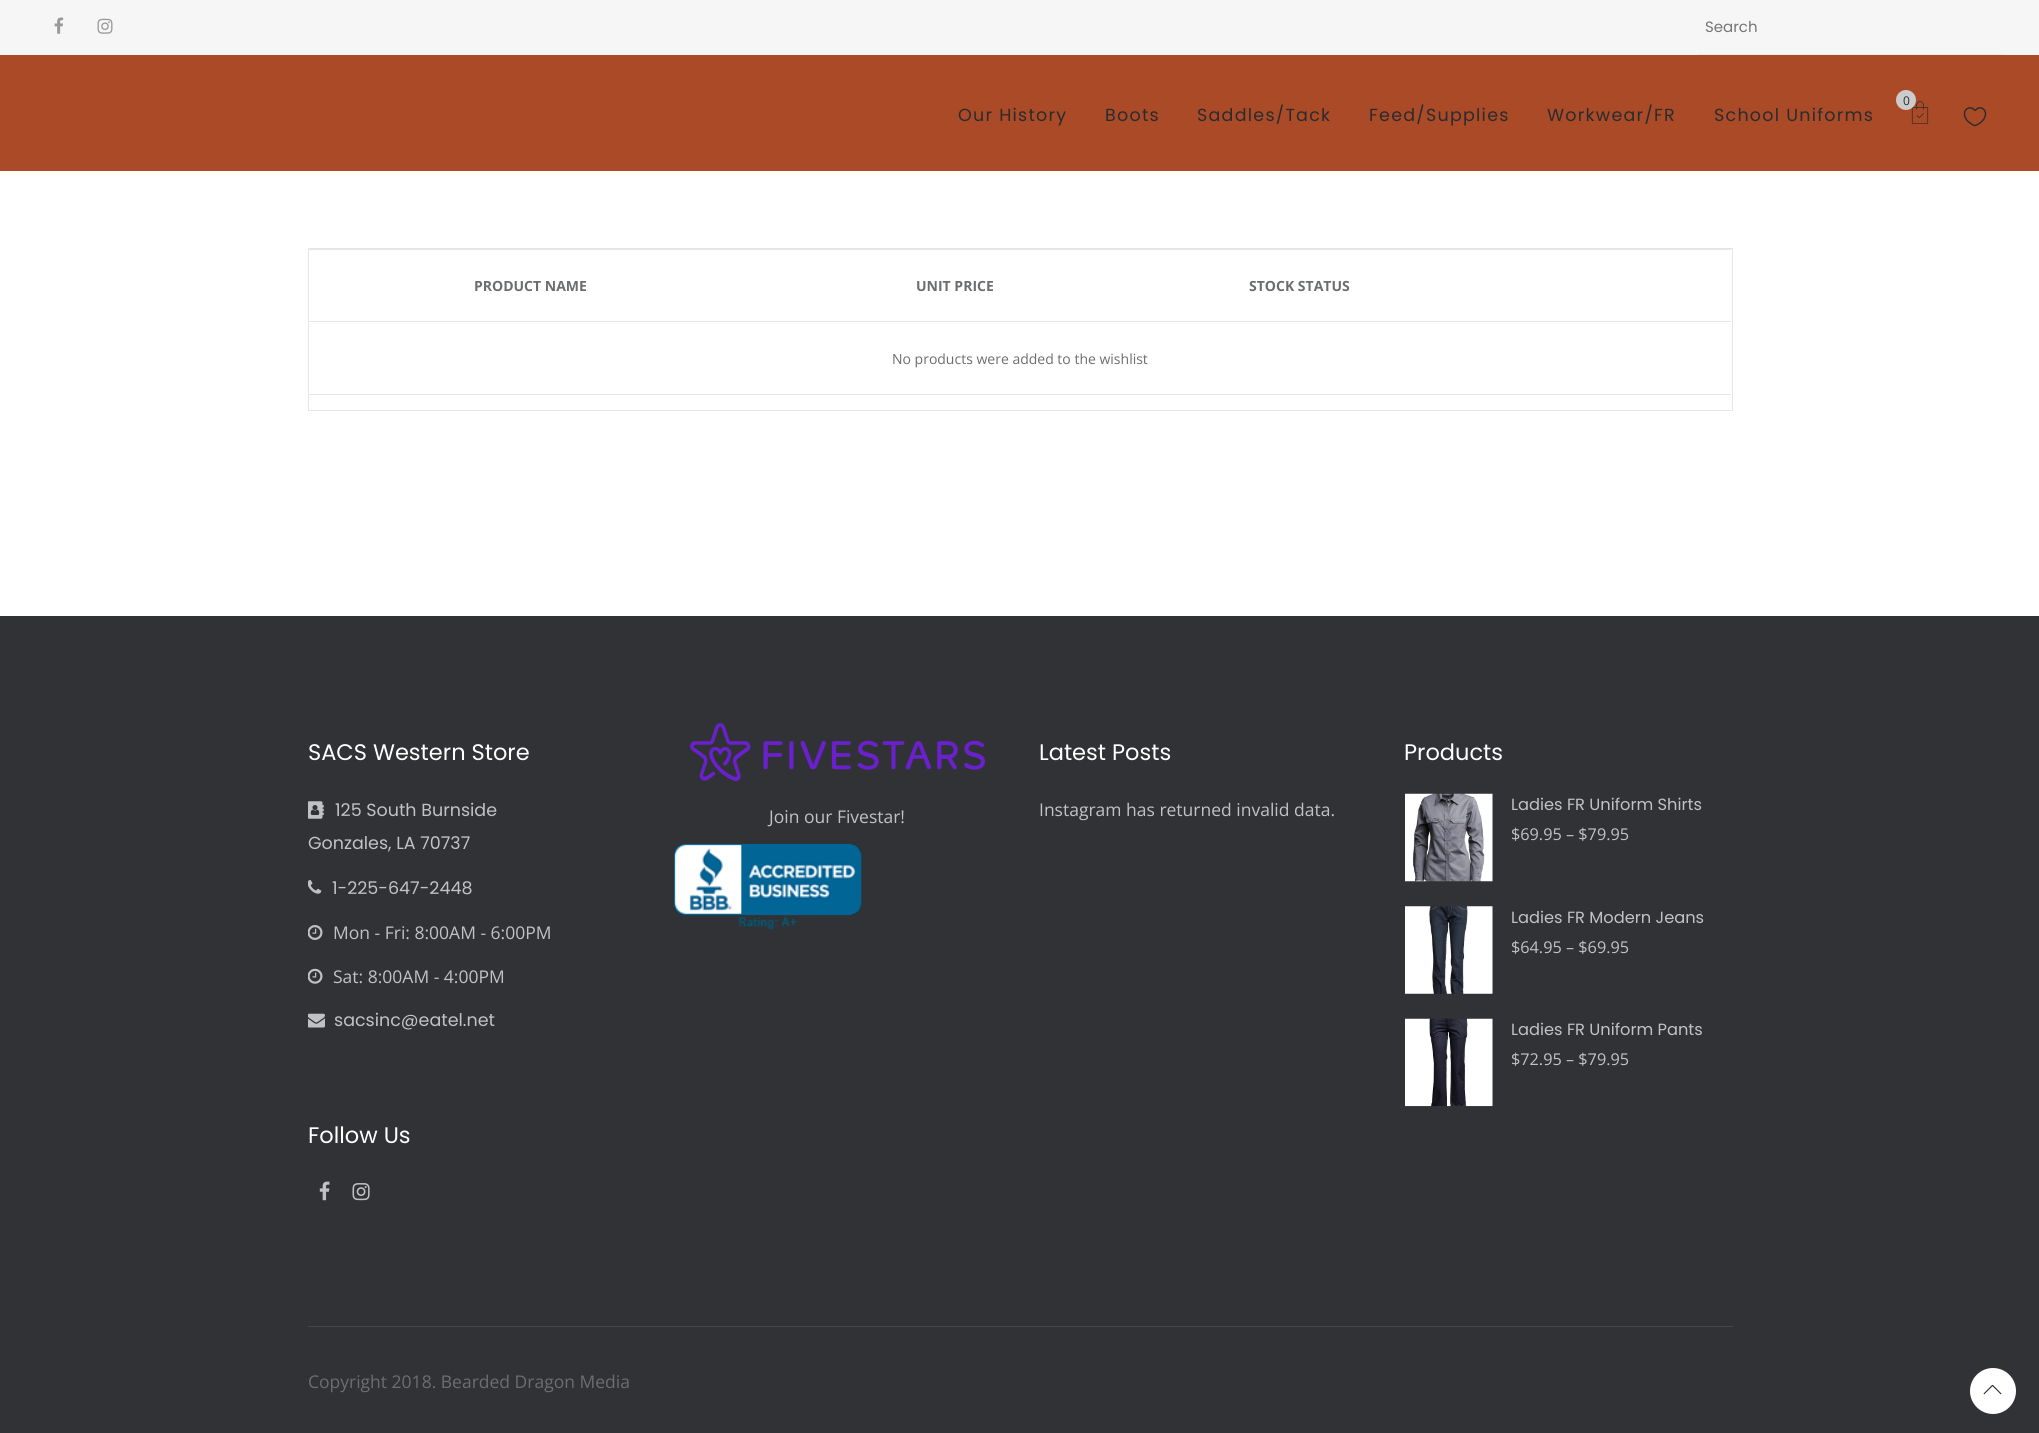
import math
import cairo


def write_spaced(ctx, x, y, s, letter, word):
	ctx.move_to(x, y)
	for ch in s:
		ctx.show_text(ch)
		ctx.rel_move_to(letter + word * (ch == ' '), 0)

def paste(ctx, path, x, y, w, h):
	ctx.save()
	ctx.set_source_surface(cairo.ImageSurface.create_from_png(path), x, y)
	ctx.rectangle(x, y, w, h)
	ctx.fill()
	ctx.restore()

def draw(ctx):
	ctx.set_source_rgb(1, 1, 1)
	ctx.paint()
	ctx.set_source_rgb(0.667, 0.29, 0.153)
	ctx.rectangle(0, 55, 2039, 116)
	ctx.fill()
	ctx.set_source_rgb(0.961, 0.961, 0.961)
	ctx.rectangle(0, 0, 2039, 55)
	ctx.fill()
	paste(ctx, 'media/1.png', 54, 17, 10, 17)
	paste(ctx, 'media/2.png', 97, 18, 16, 16)
	ctx.set_source_rgb(0.922, 0.922, 0.922)
	ctx.rectangle(1698, 54, 305, 1)
	ctx.fill()
	ctx.select_font_face('Poppins')
	ctx.set_font_size(15)
	ctx.set_source_rgb(0.459, 0.459, 0.459)
	ctx.move_to(1705, 32)
	ctx.show_text('Search')
	paste(ctx, 'media/3.png', 1911, 101, 18, 23)
	ctx.set_source_rgb(0.8, 0.8, 0.8)
	ctx.arc(1906, 100, 10, 0, 2 * math.pi)
	ctx.fill()
	ctx.select_font_face('Open Sans')
	ctx.set_font_size(12)
	ctx.set_source_rgb(0.165, 0.169, 0.184)
	ctx.move_to(1903, 105)
	ctx.show_text('0')
	paste(ctx, 'media/4.png', 1963, 107, 24, 20)
	ctx.select_font_face('Poppins')
	ctx.set_font_size(17.5)
	for x, y, s in [
		(958, 121, 'Our History'),
		(1105, 121, 'Boots'),
		(1197, 121, 'Saddles/Tack'),
		(1369, 121, 'Feed/Supplies'),
		(1547, 121, 'Workwear/FR'),
		(1714, 121, 'School Uniforms'),
	]:
		write_spaced(ctx, x, y, s, 1.25, 0)
	ctx.rectangle(308.5, 248.5, 1424, 162)
	ctx.set_source_rgb(0.902, 0.902, 0.902)
	ctx.set_line_width(1)
	ctx.stroke()
	ctx.set_source_rgb(0.906, 0.906, 0.906)
	ctx.rectangle(309, 249, 1422, 1)
	ctx.fill()
	ctx.select_font_face('Open Sans', cairo.FONT_SLANT_NORMAL, cairo.FONT_WEIGHT_BOLD)
	ctx.set_font_size(14)
	ctx.set_source_rgb(0.42, 0.427, 0.435)
	for x, y, s in [
		(474, 291, 'PRODUCT NAME'),
		(916, 291, 'UNIT PRICE'),
		(1249, 291, 'STOCK STATUS'),
	]:
		ctx.move_to(x, y)
		ctx.show_text(s)
	ctx.set_source_rgb(0.906, 0.906, 0.906)
	ctx.rectangle(309, 321, 1422, 1)
	ctx.fill()
	ctx.select_font_face('Open Sans')
	ctx.set_source_rgb(0.42, 0.427, 0.435)
	ctx.move_to(892, 364)
	ctx.show_text('No products were added to the wishlist')
	ctx.set_source_rgb(0.902, 0.902, 0.902)
	ctx.rectangle(309, 394, 1422, 1)
	ctx.fill()
	ctx.set_source_rgb(0.188, 0.196, 0.212)
	ctx.rectangle(0, 616, 2039, 817)
	ctx.fill()
	ctx.select_font_face('Poppins')
	ctx.set_font_size(22.5)
	ctx.set_source_rgb(1, 1, 1)
	ctx.move_to(308, 760)
	ctx.show_text('SACS Western Store')
	paste(ctx, 'media/5.png', 308, 801, 16, 18)
	ctx.set_font_size(17.5)
	ctx.set_source_rgb(0.757, 0.761, 0.765)
	ctx.move_to(335, 816)
	ctx.show_text('125 South Burnside')
	ctx.move_to(308, 849)
	ctx.show_text('Gonzales, LA 70737')
	paste(ctx, 'media/6.png', 308, 880, 14, 14)
	ctx.move_to(332, 894)
	ctx.show_text('1-225-647-2448')
	paste(ctx, 'media/7.png', 308, 925, 15, 15)
	ctx.select_font_face('Open Sans')
	ctx.move_to(333, 939)
	ctx.show_text('Mon - Fri: 8:00AM - 6:00PM')
	paste(ctx, 'media/8.png', 308, 968, 15, 16)
	ctx.move_to(333, 983)
	ctx.show_text('Sat: 8:00AM - 4:00PM')
	paste(ctx, 'media/9.png', 308, 1013, 17, 15)
	ctx.select_font_face('Poppins')
	ctx.move_to(334, 1026)
	ctx.show_text('sacsinc@eatel.net')
	ctx.set_font_size(22.5)
	ctx.set_source_rgb(1, 1, 1)
	ctx.move_to(308, 1143)
	ctx.show_text('Follow Us')
	paste(ctx, 'media/10.png', 319, 1181, 11, 20)
	paste(ctx, 'media/11.png', 352, 1183, 18, 18)
	paste(ctx, 'media/12.png', 690, 723, 296, 58)
	ctx.select_font_face('Open Sans')
	ctx.set_font_size(17.5)
	ctx.set_source_rgb(0.757, 0.761, 0.765)
	ctx.move_to(769, 823)
	ctx.show_text('Join our Fivestar!')
	paste(ctx, 'media/13.png', 674, 843, 188, 86)
	ctx.select_font_face('Poppins')
	ctx.set_font_size(22.5)
	ctx.set_source_rgb(1, 1, 1)
	ctx.move_to(1039, 760)
	ctx.show_text('Latest Posts')
	ctx.select_font_face('Open Sans')
	ctx.set_font_size(17.5)
	ctx.set_source_rgb(0.757, 0.761, 0.765)
	ctx.move_to(1039, 816)
	ctx.show_text('Instagram has returned invalid data.')
	ctx.select_font_face('Poppins')
	ctx.set_font_size(22.5)
	ctx.set_source_rgb(1, 1, 1)
	ctx.move_to(1404, 760)
	ctx.show_text('Products')
	paste(ctx, 'media/14.png', 1405, 793, 88, 89)
	ctx.set_font_size(16.25)
	ctx.set_source_rgb(0.757, 0.761, 0.765)
	ctx.move_to(1511, 810)
	ctx.show_text('Ladies FR Uniform Shirts')
	ctx.select_font_face('Open Sans')
	ctx.move_to(1511, 840)
	ctx.show_text('$69.95 – $79.95')
	paste(ctx, 'media/15.png', 1405, 906, 88, 88)
	ctx.select_font_face('Poppins')
	ctx.move_to(1511, 923)
	ctx.show_text('Ladies FR Modern Jeans')
	ctx.select_font_face('Open Sans')
	ctx.move_to(1511, 953)
	ctx.show_text('$64.95 – $69.95')
	paste(ctx, 'media/16.png', 1405, 1018, 88, 89)
	ctx.select_font_face('Poppins')
	ctx.move_to(1511, 1035)
	ctx.show_text('Ladies FR Uniform Pants')
	ctx.select_font_face('Open Sans')
	ctx.move_to(1511, 1065)
	ctx.show_text('$72.95 – $79.95')
	ctx.set_source_rgb(0.271, 0.278, 0.29)
	ctx.rectangle(308, 1326, 1425, 1)
	ctx.fill()
	ctx.set_font_size(17.5)
	ctx.set_source_rgb(0.42, 0.427, 0.435)
	ctx.move_to(308, 1388)
	ctx.show_text('Copyright 2018. Bearded Dragon Media')
	ctx.set_source_rgb(1, 1, 1)
	ctx.new_path()
	ctx.arc(1993, 1391, 23, 0, 2 * math.pi)
	ctx.fill()
	paste(ctx, 'media/17.png', 1983, 1384, 19, 11)


surface = cairo.ImageSurface(cairo.FORMAT_RGB24, 2039, 1433)
ctx = cairo.Context(surface)
options = cairo.FontOptions()
options.set_hint_metrics(cairo.HINT_METRICS_OFF)
options.set_hint_style(cairo.HINT_STYLE_NONE)
ctx.set_font_options(options)
ctx.set_miter_limit(4)
draw(ctx)
surface.write_to_png('image.png')
